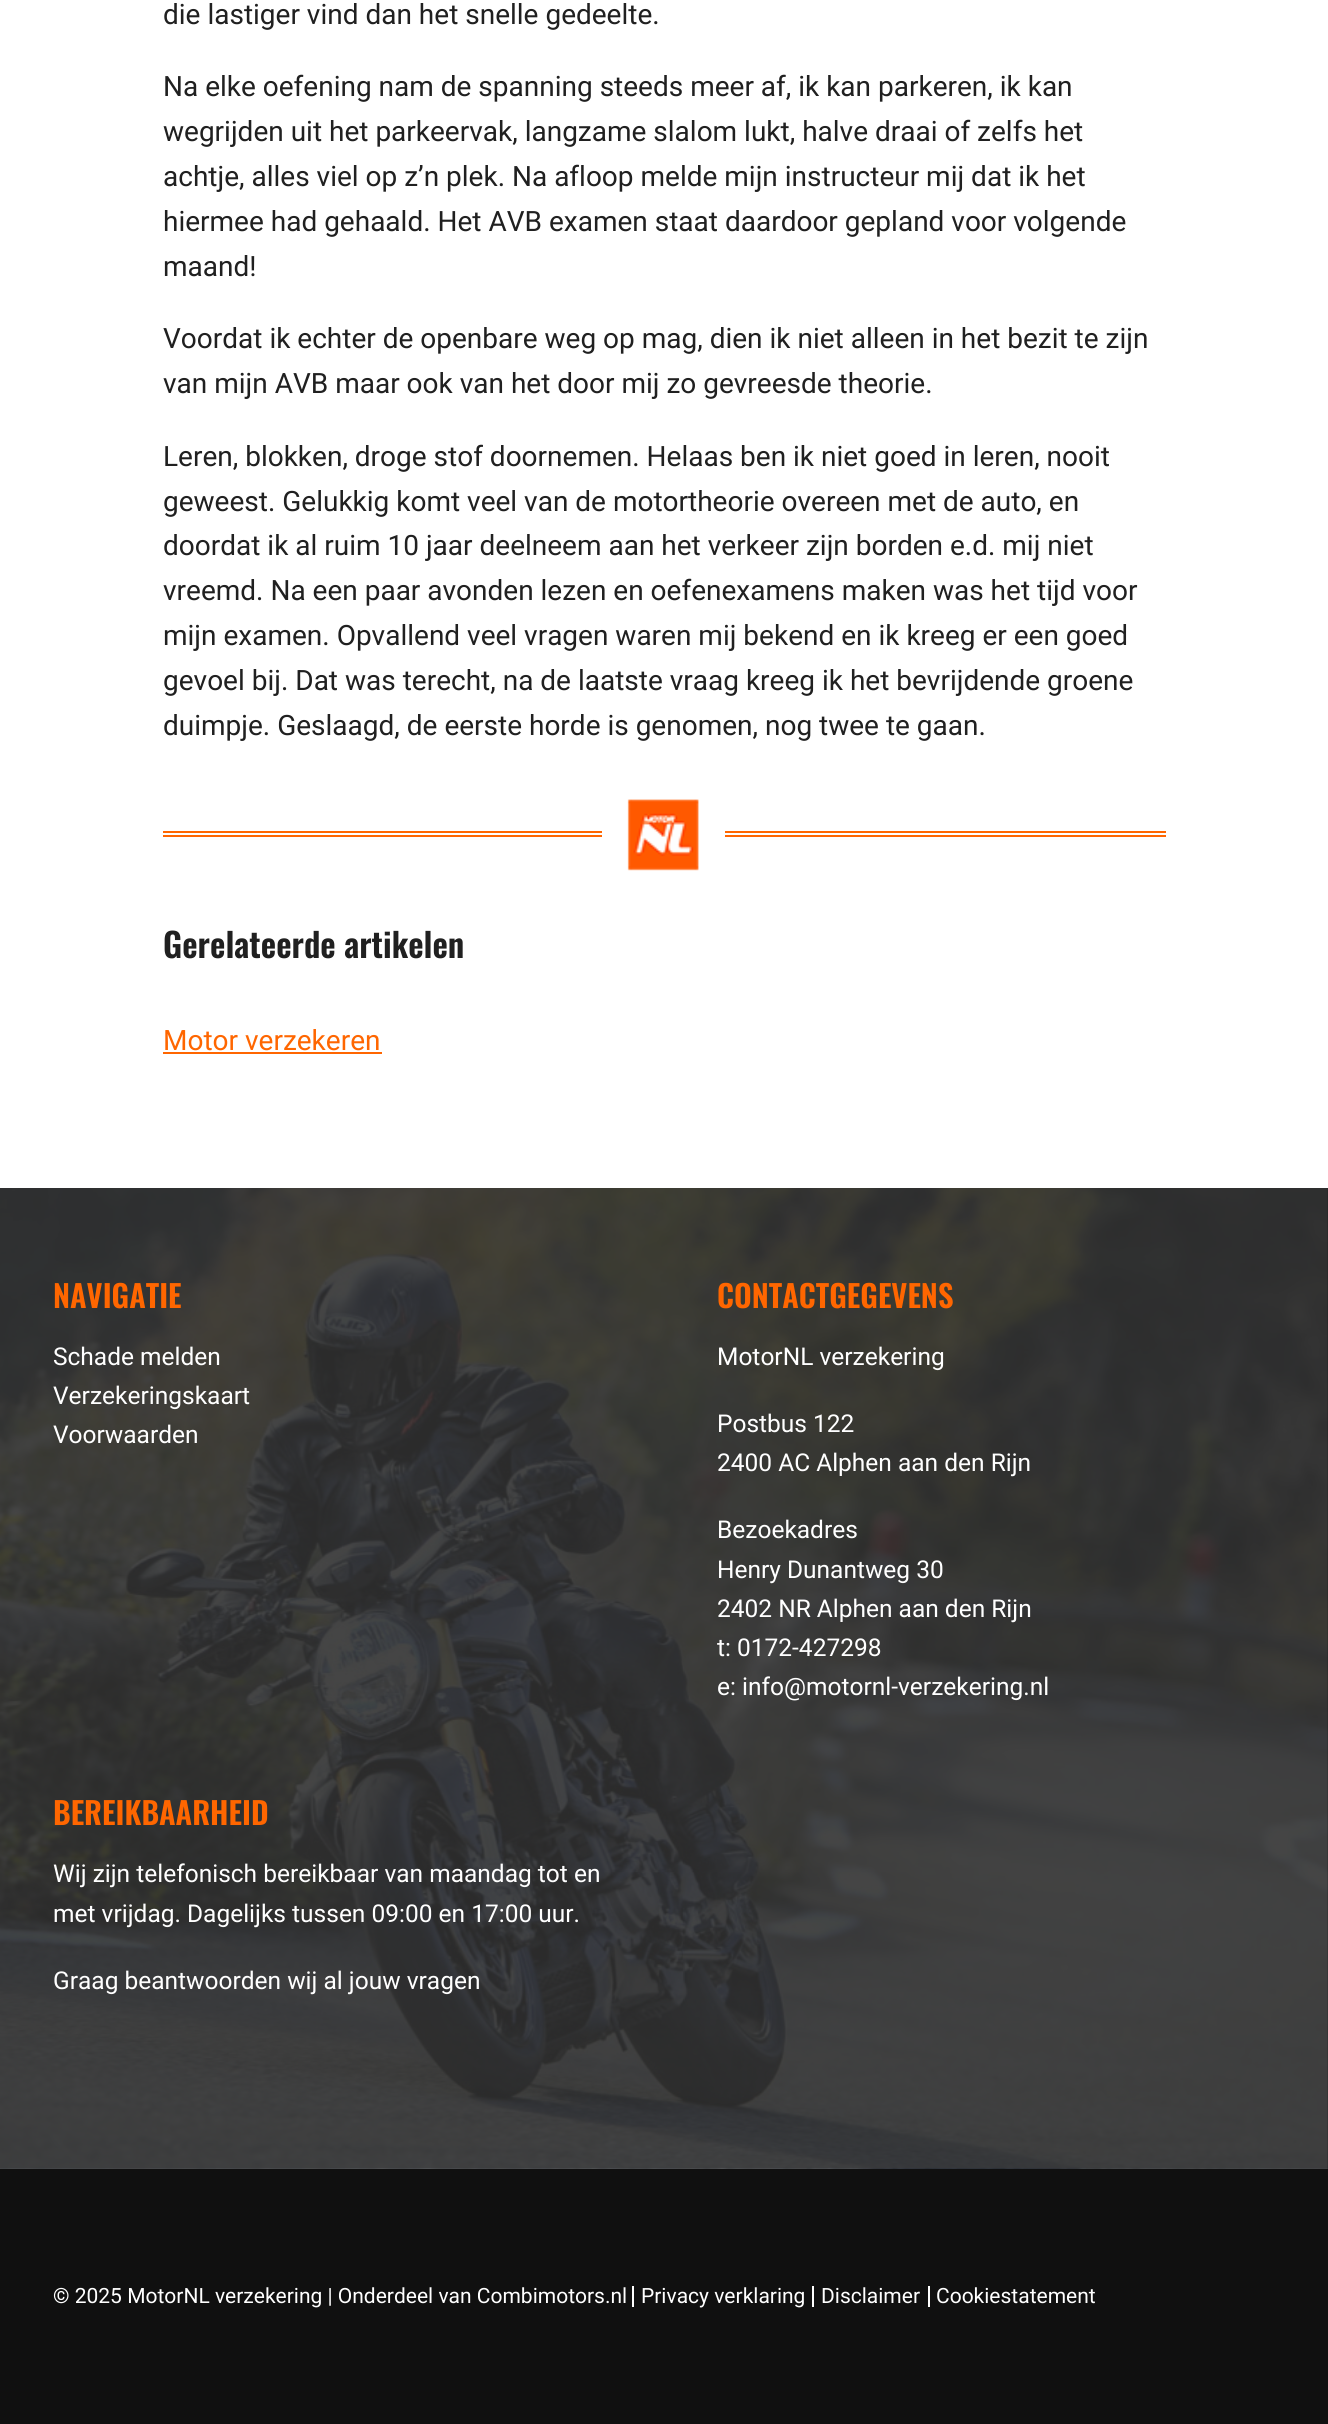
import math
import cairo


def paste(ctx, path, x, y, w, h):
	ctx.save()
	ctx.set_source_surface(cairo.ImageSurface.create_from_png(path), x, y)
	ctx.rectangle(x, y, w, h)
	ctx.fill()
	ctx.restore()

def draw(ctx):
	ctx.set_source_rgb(0.063, 0.063, 0.063)
	ctx.paint()
	ctx.set_source_rgb(1, 1, 1)
	ctx.rectangle(0, 0, 1328, 1188)
	ctx.fill()
	ctx.select_font_face('Roboto')
	ctx.set_font_size(28)
	ctx.set_source_rgb(0.125, 0.125, 0.125)
	for x, y, s in [
		(163, 24, 'die lastiger vind dan het snelle gedeelte.'),
		(163, 96, 'Na elke oefening nam de spanning steeds meer af, ik kan parkeren, ik kan'),
		(163, 141, 'wegrijden uit het parkeervak, langzame slalom lukt, halve draai of zelfs het'),
		(163, 186, 'achtje, alles viel op z’n plek. Na afloop melde mijn instructeur mij dat ik het'),
		(163, 231, 'hiermee had gehaald. Het AVB examen staat daardoor gepland voor volgende'),
		(163, 276, 'maand!'),
		(163, 348, 'Voordat ik echter de openbare weg op mag, dien ik niet alleen in het bezit te zijn'),
		(163, 393, 'van mijn AVB maar ook van het door mij zo gevreesde theorie.'),
		(163, 466, 'Leren, blokken, droge stof doornemen. Helaas ben ik niet goed in leren, nooit'),
		(163, 511, 'geweest. Gelukkig komt veel van de motortheorie overeen met de auto, en'),
		(163, 555, 'doordat ik al ruim 10 jaar deelneem aan het verkeer zijn borden e.d. mij niet'),
		(163, 600, 'vreemd. Na een paar avonden lezen en oefenexamens maken was het tijd voor'),
		(163, 645, 'mijn examen. Opvallend veel vragen waren mij bekend en ik kreeg er een goed'),
		(163, 690, 'gevoel bij. Dat was terecht, na de laatste vraag kreeg ik het bevrijdende groene'),
		(163, 735, 'duimpje. Geslaagd, de eerste horde is genomen, nog twee te gaan.'),
	]:
		ctx.move_to(x, y)
		ctx.show_text(s)
	ctx.set_source_rgb(1, 0.4, 0)
	ctx.rectangle(163, 831, 1003, 2)
	ctx.rectangle(163, 835, 1003, 2)
	ctx.fill()
	ctx.set_source_rgb(1, 1, 1)
	ctx.rectangle(602, 831, 123, 6)
	ctx.fill()
	paste(ctx, 'media/1.png', 627, 799, 72, 72)
	ctx.select_font_face('Oswald SemiBold')
	ctx.set_font_size(33.5)
	ctx.set_source_rgb(0.125, 0.125, 0.125)
	ctx.move_to(163, 958)
	ctx.show_text('Gerelateerde artikelen')
	ctx.select_font_face('Roboto')
	ctx.set_font_size(28)
	ctx.set_source_rgb(1, 0.4, 0)
	ctx.move_to(163, 1050)
	ctx.show_text('Motor verzekeren')
	ctx.rectangle(163, 1052, 219, 2)
	ctx.fill()
	paste(ctx, 'media/2.png', 0, 1188, 1328, 981)
	ctx.select_font_face('Oswald SemiBold')
	ctx.set_font_size(30.75)
	ctx.move_to(53, 1308)
	ctx.show_text('NAVIGATIE')
	ctx.select_font_face('Roboto')
	ctx.set_font_size(24.5)
	ctx.set_source_rgb(1, 1, 1)
	for x, y, s in [
		(53, 1365, 'Schade melden'),
		(53, 1404, 'Verzekeringskaart'),
		(53, 1443, 'Voorwaarden'),
	]:
		ctx.move_to(x, y)
		ctx.show_text(s)
	ctx.select_font_face('Oswald SemiBold')
	ctx.set_font_size(30.75)
	ctx.set_source_rgb(1, 0.4, 0)
	ctx.move_to(717, 1308)
	ctx.show_text('CONTACTGEGEVENS')
	ctx.select_font_face('Roboto')
	ctx.set_font_size(24.5)
	ctx.set_source_rgb(1, 1, 1)
	for x, y, s in [
		(717, 1365, 'MotorNL verzekering'),
		(717, 1432, 'Postbus 122'),
		(717, 1471, '2400 AC Alphen aan den Rijn'),
		(717, 1538, 'Bezoekadres'),
		(717, 1578, 'Henry Dunantweg 30'),
		(717, 1617, '2402 NR Alphen aan den Rijn'),
		(717, 1656, 't: 0172-427298'),
		(717, 1695, 'e: info@motornl-verzekering.nl'),
	]:
		ctx.move_to(x, y)
		ctx.show_text(s)
	ctx.select_font_face('Oswald SemiBold')
	ctx.set_font_size(30.75)
	ctx.set_source_rgb(1, 0.4, 0)
	ctx.move_to(53, 1825)
	ctx.show_text('BEREIKBAARHEID')
	ctx.select_font_face('Roboto')
	ctx.set_font_size(24.5)
	ctx.set_source_rgb(1, 1, 1)
	for x, y, s in [
		(53, 1882, 'Wij zijn telefonisch bereikbaar van maandag tot en'),
		(53, 1922, 'met vrijdag. Dagelijks tussen 09:00 en 17:00 uur.'),
		(53, 1989, 'Graag beantwoorden wij al jouw vragen'),
	]:
		ctx.move_to(x, y)
		ctx.show_text(s)
	ctx.set_font_size(21)
	ctx.move_to(53, 2303)
	ctx.show_text('© 2025 MotorNL verzekering | Onderdeel van Combimotors.nl')
	ctx.rectangle(632, 2286, 2, 21)
	ctx.fill()
	ctx.move_to(641, 2303)
	ctx.show_text('Privacy verklaring')
	ctx.rectangle(812, 2286, 2, 21)
	ctx.fill()
	ctx.move_to(821, 2303)
	ctx.show_text('Disclaimer')
	ctx.rectangle(928, 2286, 2, 21)
	ctx.fill()
	ctx.move_to(936, 2303)
	ctx.show_text('Cookiestatement')


surface = cairo.ImageSurface(cairo.FORMAT_RGB24, 1328, 2424)
ctx = cairo.Context(surface)
options = cairo.FontOptions()
options.set_hint_metrics(cairo.HINT_METRICS_OFF)
options.set_hint_style(cairo.HINT_STYLE_NONE)
ctx.set_font_options(options)
ctx.set_miter_limit(4)
draw(ctx)
surface.write_to_png('image.png')
